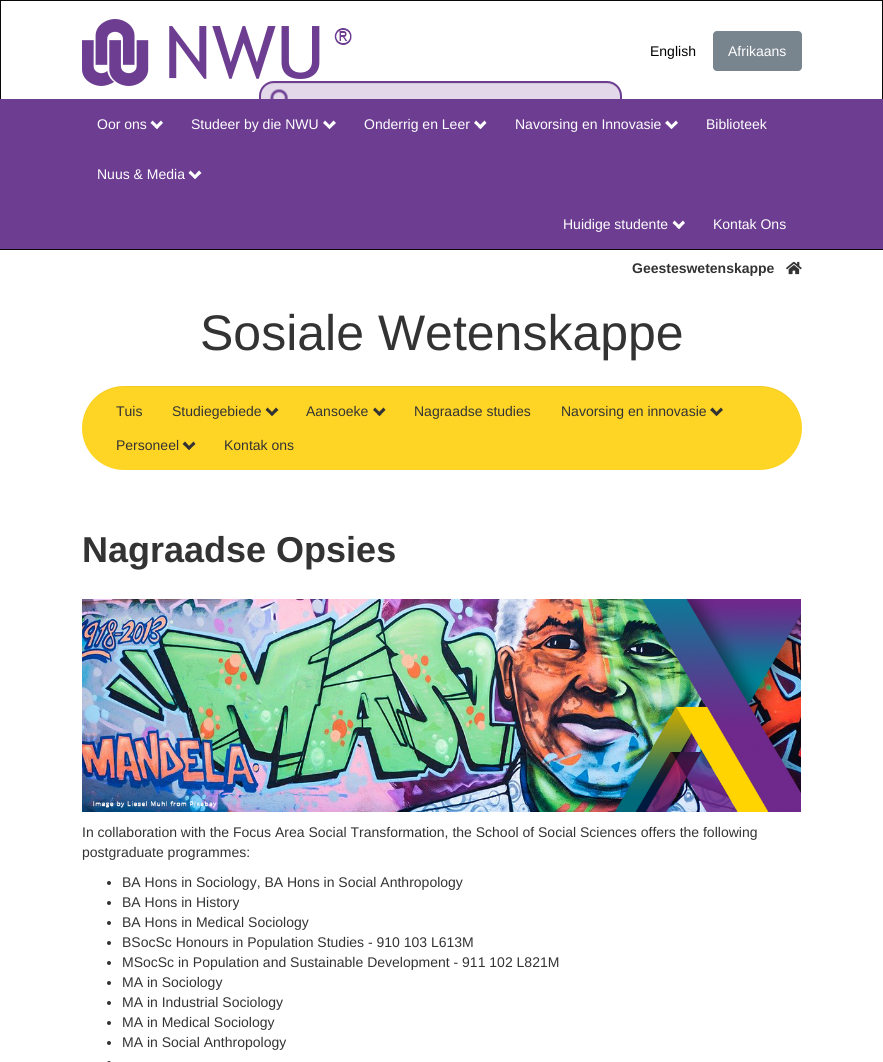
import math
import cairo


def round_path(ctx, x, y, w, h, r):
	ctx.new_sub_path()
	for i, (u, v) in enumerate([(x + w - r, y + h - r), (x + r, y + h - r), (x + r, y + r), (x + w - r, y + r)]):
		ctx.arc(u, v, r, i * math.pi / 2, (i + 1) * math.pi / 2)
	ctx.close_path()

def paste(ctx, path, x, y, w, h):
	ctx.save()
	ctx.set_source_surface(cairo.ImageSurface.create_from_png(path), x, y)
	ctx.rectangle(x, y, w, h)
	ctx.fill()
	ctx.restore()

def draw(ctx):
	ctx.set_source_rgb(1, 1, 1)
	ctx.paint()
	ctx.rectangle(0.5, 0.5, 882, 249)
	ctx.set_source_rgb(0.031, 0.031, 0.031)
	ctx.set_line_width(1)
	ctx.stroke()
	paste(ctx, 'media/1.png', 82, 19, 270, 67)
	ctx.select_font_face('Liberation Sans')
	ctx.set_font_size(14)
	ctx.set_source_rgb(0, 0, 0)
	ctx.move_to(650, 56)
	ctx.show_text('English')
	ctx.set_source_rgb(0.471, 0.518, 0.557)
	round_path(ctx, 713, 31, 89, 40, 4)
	ctx.fill()
	ctx.set_source_rgb(1, 1, 1)
	ctx.move_to(728, 56)
	ctx.show_text('Afrikaans')
	ctx.set_source_rgb(0.886, 0.847, 0.914)
	round_path(ctx, 259, 81, 363, 40, 15)
	ctx.fill()
	paste(ctx, 'media/2.png', 270, 89, 18, 10)
	ctx.set_source_rgb(0.82, 0.784, 0.847)
	ctx.new_path()
	ctx.move_to(274, 84)
	ctx.line_to(607, 84)
	ctx.curve_to(614, 84, 620, 89, 620, 96)
	ctx.curve_to(620, 89, 614, 83, 607, 83)
	ctx.line_to(274, 83)
	ctx.curve_to(269, 83, 265, 86, 262, 90)
	ctx.curve_to(264, 86, 269, 84, 274, 84)
	ctx.close_path()
	ctx.fill()
	round_path(ctx, 260, 82, 361, 38, 14)
	ctx.set_source_rgb(0.424, 0.239, 0.569)
	ctx.set_line_width(2)
	ctx.stroke()
	ctx.rectangle(0, 99, 883, 150)
	ctx.fill()
	ctx.set_source_rgb(1, 1, 1)
	ctx.move_to(97, 129)
	ctx.show_text('Oor ons')
	ctx.new_path()
	ctx.move_to(161, 120.5)
	ctx.line_to(163, 123)
	ctx.line_to(157, 129)
	ctx.line_to(154.5, 127)
	ctx.close_path()
	ctx.fill()
	ctx.new_path()
	ctx.move_to(152.5, 120.5)
	ctx.line_to(159, 127)
	ctx.line_to(157, 129)
	ctx.line_to(150.5, 123)
	ctx.close_path()
	ctx.fill()
	ctx.move_to(191, 129)
	ctx.show_text('Studeer by die NWU')
	ctx.new_path()
	ctx.move_to(333.5, 120.5)
	ctx.line_to(336, 123)
	ctx.line_to(329.5, 129)
	ctx.line_to(327.5, 127)
	ctx.close_path()
	ctx.fill()
	ctx.new_path()
	ctx.move_to(325, 120.5)
	ctx.line_to(331.5, 127)
	ctx.line_to(329.5, 129)
	ctx.line_to(323, 123)
	ctx.close_path()
	ctx.fill()
	ctx.move_to(364, 129)
	ctx.show_text('Onderrig en Leer')
	ctx.new_path()
	ctx.move_to(484.5, 120.5)
	ctx.line_to(486.5, 123)
	ctx.line_to(480.5, 129)
	ctx.line_to(478, 127)
	ctx.close_path()
	ctx.fill()
	ctx.new_path()
	ctx.move_to(476, 120.5)
	ctx.line_to(482.5, 127)
	ctx.line_to(480.5, 129)
	ctx.line_to(474, 123)
	ctx.close_path()
	ctx.fill()
	ctx.move_to(515, 129)
	ctx.show_text('Navorsing en Innovasie')
	ctx.new_path()
	ctx.move_to(676, 120.5)
	ctx.line_to(678, 123)
	ctx.line_to(671.5, 129)
	ctx.line_to(669.5, 127)
	ctx.close_path()
	ctx.fill()
	ctx.new_path()
	ctx.move_to(667.5, 120.5)
	ctx.line_to(673.5, 127)
	ctx.line_to(671.5, 129)
	ctx.line_to(665, 123)
	ctx.close_path()
	ctx.fill()
	ctx.move_to(706, 129)
	ctx.show_text('Biblioteek')
	ctx.move_to(97, 179)
	ctx.show_text('Nuus & Media')
	ctx.new_path()
	ctx.move_to(199, 170.5)
	ctx.line_to(201.5, 173)
	ctx.line_to(195, 179)
	ctx.line_to(193, 177)
	ctx.close_path()
	ctx.fill()
	ctx.new_path()
	ctx.move_to(190.5, 170.5)
	ctx.line_to(197, 177)
	ctx.line_to(195, 179)
	ctx.line_to(188.5, 173)
	ctx.close_path()
	ctx.fill()
	ctx.move_to(563, 229)
	ctx.show_text('Huidige studente')
	ctx.new_path()
	ctx.move_to(683, 220.5)
	ctx.line_to(685, 223)
	ctx.line_to(679, 229)
	ctx.line_to(676.5, 227)
	ctx.close_path()
	ctx.fill()
	ctx.new_path()
	ctx.move_to(674.5, 220.5)
	ctx.line_to(681, 227)
	ctx.line_to(679, 229)
	ctx.line_to(672.5, 223)
	ctx.close_path()
	ctx.fill()
	ctx.move_to(713, 229)
	ctx.show_text('Kontak Ons')
	ctx.select_font_face('Liberation Sans', cairo.FONT_SLANT_NORMAL, cairo.FONT_WEIGHT_BOLD)
	ctx.set_source_rgb(0.2, 0.2, 0.2)
	ctx.move_to(632, 273)
	ctx.show_text('Geesteswetenskappe')
	paste(ctx, 'media/3.png', 786, 261, 16, 14)
	ctx.select_font_face('Liberation Sans')
	ctx.set_font_size(50)
	ctx.move_to(200, 350)
	ctx.show_text('Sosiale Wetenskappe')
	ctx.set_source_rgb(1, 0.835, 0.145)
	round_path(ctx, 82, 386, 720, 84, 42)
	ctx.fill()
	ctx.set_source_rgba(0, 0, 0, 0.05)
	ctx.new_path()
	ctx.move_to(124, 387)
	ctx.line_to(760, 387)
	ctx.curve_to(783, 387, 802, 406, 802, 429)
	ctx.curve_to(802, 405, 783, 386, 760, 386)
	ctx.line_to(124, 386)
	ctx.curve_to(101, 386, 82, 405, 82, 429)
	ctx.curve_to(82, 406, 101, 387, 124, 387)
	ctx.close_path()
	ctx.fill()
	ctx.set_font_size(14)
	ctx.set_source_rgb(0.2, 0.2, 0.2)
	ctx.move_to(116, 416)
	ctx.show_text('Tuis')
	ctx.move_to(172, 416)
	ctx.show_text('Studiegebiede')
	ctx.new_path()
	ctx.move_to(276, 407.5)
	ctx.line_to(278.5, 410)
	ctx.line_to(272, 416)
	ctx.line_to(270, 414)
	ctx.close_path()
	ctx.fill()
	ctx.new_path()
	ctx.move_to(267.5, 407.5)
	ctx.line_to(274, 414)
	ctx.line_to(272, 416)
	ctx.line_to(265.5, 410)
	ctx.close_path()
	ctx.fill()
	ctx.move_to(306, 416)
	ctx.show_text('Aansoeke')
	ctx.new_path()
	ctx.move_to(383.5, 407.5)
	ctx.line_to(385.5, 410)
	ctx.line_to(379.5, 416)
	ctx.line_to(377, 414)
	ctx.close_path()
	ctx.fill()
	ctx.new_path()
	ctx.move_to(375, 407.5)
	ctx.line_to(381.5, 414)
	ctx.line_to(379.5, 416)
	ctx.line_to(373, 410)
	ctx.close_path()
	ctx.fill()
	ctx.move_to(414, 416)
	ctx.show_text('Nagraadse studies')
	ctx.move_to(561, 416)
	ctx.show_text('Navorsing en innovasie')
	ctx.new_path()
	ctx.move_to(721, 407.5)
	ctx.line_to(723, 410)
	ctx.line_to(716.5, 416)
	ctx.line_to(714.5, 414)
	ctx.close_path()
	ctx.fill()
	ctx.new_path()
	ctx.move_to(712.5, 407.5)
	ctx.line_to(718.5, 414)
	ctx.line_to(716.5, 416)
	ctx.line_to(710, 410)
	ctx.close_path()
	ctx.fill()
	ctx.move_to(116, 450)
	ctx.show_text('Personeel')
	ctx.new_path()
	ctx.move_to(193.5, 441.5)
	ctx.line_to(195.5, 444)
	ctx.line_to(189, 450)
	ctx.line_to(187, 448)
	ctx.close_path()
	ctx.fill()
	ctx.new_path()
	ctx.move_to(185, 441.5)
	ctx.line_to(191, 448)
	ctx.line_to(189, 450)
	ctx.line_to(182.5, 444)
	ctx.close_path()
	ctx.fill()
	ctx.move_to(224, 450)
	ctx.show_text('Kontak ons')
	ctx.select_font_face('Liberation Sans', cairo.FONT_SLANT_NORMAL, cairo.FONT_WEIGHT_BOLD)
	ctx.set_font_size(36)
	ctx.move_to(82, 562)
	ctx.show_text('Nagraadse Opsies')
	paste(ctx, 'media/4.png', 82, 599, 719, 213)
	ctx.select_font_face('Liberation Sans')
	ctx.set_font_size(14)
	ctx.move_to(82, 837)
	ctx.show_text('In collaboration with the Focus Area Social Transformation, the School of Social Sciences offers the following')
	ctx.move_to(82, 857)
	ctx.show_text('postgraduate programmes:')
	ctx.new_path()
	ctx.arc(109, 883, 2, 0, 2 * math.pi)
	ctx.fill()
	ctx.move_to(122, 887)
	ctx.show_text('BA Hons in Sociology, BA Hons in Social Anthropology')
	ctx.new_path()
	ctx.arc(109, 903, 2, 0, 2 * math.pi)
	ctx.fill()
	ctx.move_to(122, 907)
	ctx.show_text('BA Hons in History')
	ctx.new_path()
	ctx.arc(109, 923, 2, 0, 2 * math.pi)
	ctx.fill()
	ctx.move_to(122, 927)
	ctx.show_text('BA Hons in Medical Sociology')
	ctx.new_path()
	ctx.arc(109, 943, 2, 0, 2 * math.pi)
	ctx.fill()
	ctx.move_to(122, 947)
	ctx.show_text('BSocSc Honours in Population Studies - 910 103 L613M')
	ctx.new_path()
	ctx.arc(109, 963, 2, 0, 2 * math.pi)
	ctx.fill()
	ctx.move_to(122, 967)
	ctx.show_text('MSocSc in Population and Sustainable Development - 911 102 L821M')
	ctx.new_path()
	ctx.arc(109, 983, 2, 0, 2 * math.pi)
	ctx.fill()
	ctx.move_to(122, 987)
	ctx.show_text('MA in Sociology')
	ctx.new_path()
	ctx.arc(109, 1003, 2, 0, 2 * math.pi)
	ctx.fill()
	ctx.move_to(122, 1007)
	ctx.show_text('MA in Industrial Sociology')
	ctx.new_path()
	ctx.arc(109, 1023, 2, 0, 2 * math.pi)
	ctx.fill()
	ctx.move_to(122, 1027)
	ctx.show_text('MA in Medical Sociology')
	ctx.new_path()
	ctx.arc(109, 1043, 2, 0, 2 * math.pi)
	ctx.fill()
	ctx.move_to(122, 1047)
	ctx.show_text('MA in Social Anthropology')
	round_path(ctx, 107, 1061, 4, 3, 2)
	ctx.fill()


surface = cairo.ImageSurface(cairo.FORMAT_RGB24, 883, 1062)
ctx = cairo.Context(surface)
options = cairo.FontOptions()
options.set_hint_metrics(cairo.HINT_METRICS_OFF)
options.set_hint_style(cairo.HINT_STYLE_NONE)
ctx.set_font_options(options)
ctx.set_miter_limit(4)
draw(ctx)
surface.write_to_png('image.png')
